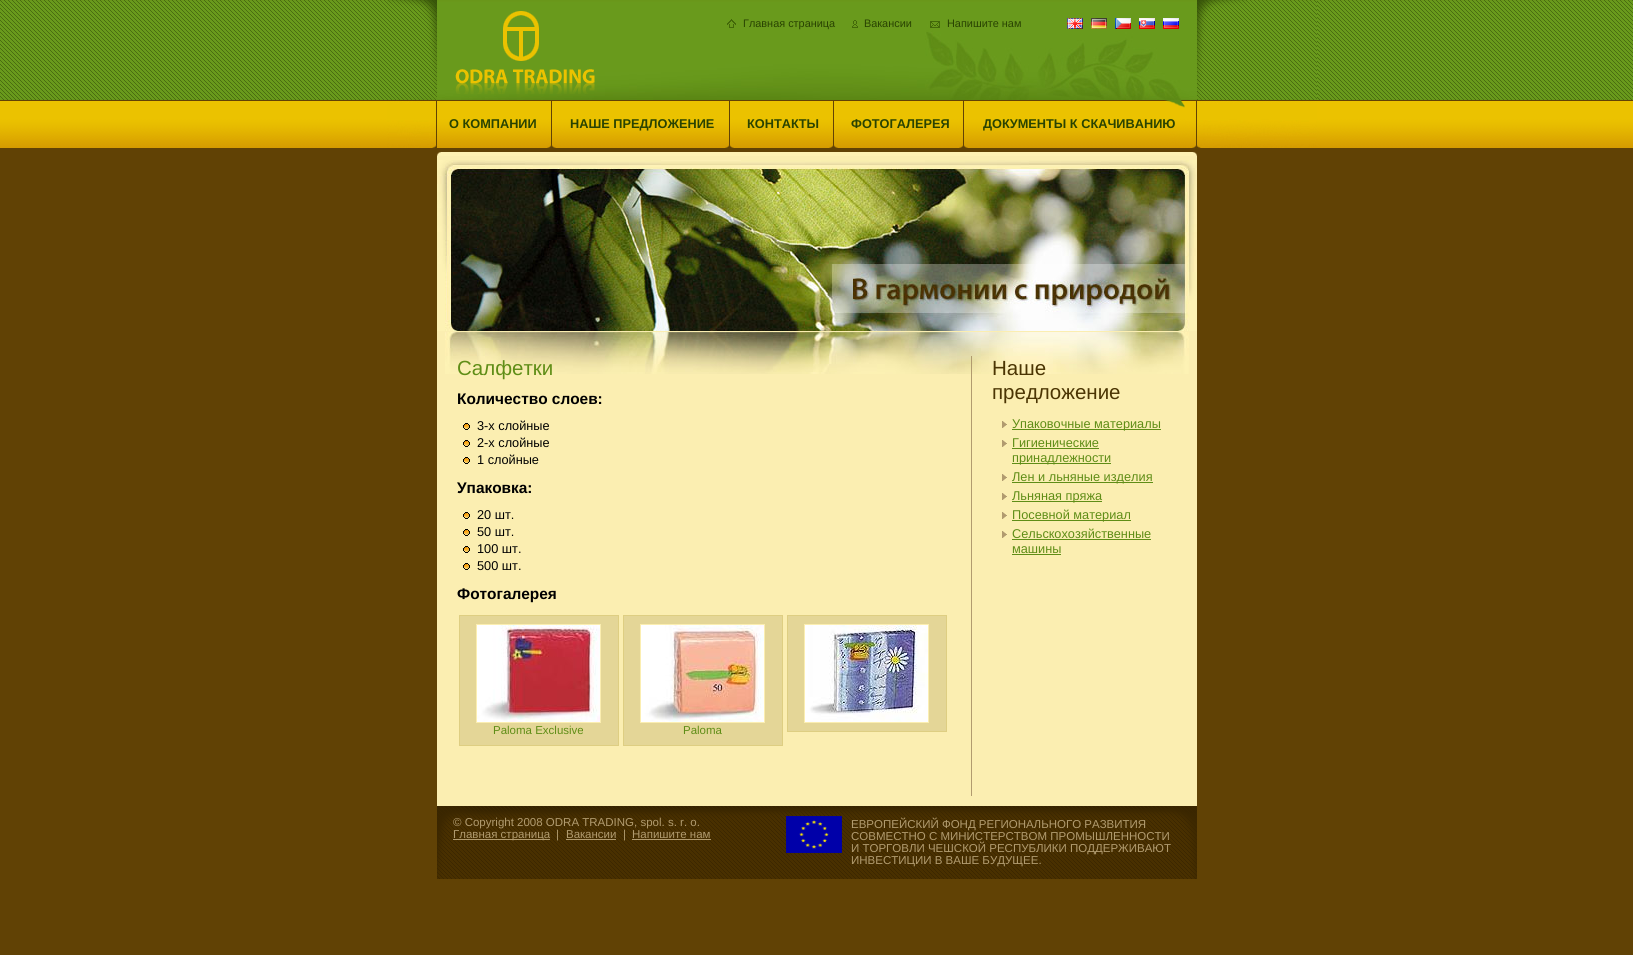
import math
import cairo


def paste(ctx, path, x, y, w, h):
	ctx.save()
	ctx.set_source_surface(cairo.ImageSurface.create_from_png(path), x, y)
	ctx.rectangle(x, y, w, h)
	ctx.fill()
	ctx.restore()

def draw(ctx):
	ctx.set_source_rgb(0.38, 0.259, 0.02)
	ctx.paint()
	paste(ctx, 'media/1.png', 0, 0, 1633, 148)
	paste(ctx, 'media/2.png', 387, 0, 930, 148)
	paste(ctx, 'media/3.png', 437, 0, 760, 100)
	paste(ctx, 'media/4.png', 455, 11, 140, 83)
	paste(ctx, 'media/5.png', 727, 19, 9, 9)
	ctx.select_font_face('Liberation Sans')
	ctx.set_font_size(10.9)
	ctx.set_source_rgb(0.161, 0.263, 0.004)
	ctx.move_to(743, 27)
	ctx.show_text('Главная страница')
	paste(ctx, 'media/6.png', 852, 20, 6, 8)
	ctx.move_to(864, 27)
	ctx.show_text('Вакансии')
	paste(ctx, 'media/7.png', 930, 21, 10, 7)
	ctx.move_to(947, 27)
	ctx.show_text('Напишите нам')
	paste(ctx, 'media/8.png', 1067, 18, 16, 11)
	paste(ctx, 'media/9.png', 1091, 18, 16, 11)
	paste(ctx, 'media/10.png', 1115, 18, 16, 11)
	paste(ctx, 'media/11.png', 1139, 18, 16, 11)
	paste(ctx, 'media/12.png', 1163, 18, 16, 11)
	paste(ctx, 'media/13.png', 1164, 100, 33, 48)
	paste(ctx, 'media/14.png', 547, 101, 9, 47)
	ctx.select_font_face('Liberation Sans', cairo.FONT_SLANT_NORMAL, cairo.FONT_WEIGHT_BOLD)
	ctx.set_font_size(12.75)
	ctx.move_to(449, 128)
	ctx.show_text('О КОМПАНИИ')
	paste(ctx, 'media/14.png', 725, 101, 9, 47)
	ctx.move_to(570, 128)
	ctx.show_text('НАШЕ ПРЕДЛОЖЕНИЕ')
	paste(ctx, 'media/14.png', 829, 101, 9, 47)
	ctx.move_to(747, 128)
	ctx.show_text('КОНТАКТЫ')
	paste(ctx, 'media/14.png', 959, 101, 9, 47)
	ctx.move_to(851, 128)
	ctx.show_text('ФОТОГАЛЕРЕЯ')
	ctx.move_to(983, 128)
	ctx.show_text('ДОКУМЕНТЫ К СКАЧИВАНИЮ')
	ctx.set_source_rgb(0.984, 0.933, 0.694)
	ctx.rectangle(437, 156, 760, 650)
	ctx.fill()
	paste(ctx, 'media/15.png', 437, 150, 760, 6)
	paste(ctx, 'media/16.png', 437, 160, 760, 171)
	paste(ctx, 'media/17.png', 445, 332, 744, 42)
	ctx.set_source_rgb(0.694, 0.608, 0.435)
	ctx.rectangle(971, 356, 1, 440)
	ctx.fill()
	ctx.select_font_face('Liberation Sans')
	ctx.set_font_size(20.5)
	ctx.set_source_rgb(0.373, 0.553, 0.086)
	ctx.move_to(457, 375)
	ctx.show_text('Салфетки')
	ctx.select_font_face('Liberation Sans', cairo.FONT_SLANT_NORMAL, cairo.FONT_WEIGHT_BOLD)
	ctx.set_font_size(15.4)
	ctx.set_source_rgb(0, 0, 0)
	ctx.move_to(457, 404)
	ctx.show_text('Количество слоев:')
	paste(ctx, 'media/18.png', 463, 423, 7, 7)
	ctx.select_font_face('Liberation Sans')
	ctx.set_font_size(12.75)
	ctx.move_to(477, 430)
	ctx.show_text('3-х слойные')
	paste(ctx, 'media/18.png', 463, 440, 7, 7)
	ctx.move_to(477, 447)
	ctx.show_text('2-х слойные')
	paste(ctx, 'media/18.png', 463, 457, 7, 7)
	ctx.move_to(477, 464)
	ctx.show_text('1 слойные')
	ctx.select_font_face('Liberation Sans', cairo.FONT_SLANT_NORMAL, cairo.FONT_WEIGHT_BOLD)
	ctx.set_font_size(15.4)
	ctx.move_to(457, 493)
	ctx.show_text('Упаковка:')
	paste(ctx, 'media/18.png', 463, 512, 7, 7)
	ctx.select_font_face('Liberation Sans')
	ctx.set_font_size(12.75)
	ctx.move_to(477, 519)
	ctx.show_text('20 шт.')
	paste(ctx, 'media/18.png', 463, 529, 7, 7)
	ctx.move_to(477, 536)
	ctx.show_text('50 шт.')
	paste(ctx, 'media/18.png', 463, 546, 7, 7)
	ctx.move_to(477, 553)
	ctx.show_text('100 шт.')
	paste(ctx, 'media/18.png', 463, 563, 7, 7)
	ctx.move_to(477, 570)
	ctx.show_text('500 шт.')
	ctx.select_font_face('Liberation Sans', cairo.FONT_SLANT_NORMAL, cairo.FONT_WEIGHT_BOLD)
	ctx.set_font_size(15.4)
	ctx.move_to(457, 599)
	ctx.show_text('Фотогалерея')
	ctx.set_source_rgb(0.894, 0.839, 0.592)
	ctx.rectangle(459.5, 615.5, 159, 130)
	ctx.fill_preserve()
	ctx.set_source_rgb(0.871, 0.808, 0.51)
	ctx.set_line_width(1)
	ctx.stroke()
	ctx.rectangle(476.5, 624.5, 124, 98)
	ctx.set_source_rgb(0.984, 0.933, 0.694)
	ctx.stroke()
	paste(ctx, 'media/19.png', 477, 625, 123, 97)
	ctx.select_font_face('Liberation Sans')
	ctx.set_font_size(11.5)
	ctx.set_source_rgb(0.373, 0.553, 0.086)
	ctx.move_to(493, 734)
	ctx.show_text('Paloma Exclusive')
	ctx.set_source_rgb(0.894, 0.839, 0.592)
	ctx.rectangle(623.5, 615.5, 159, 130)
	ctx.fill_preserve()
	ctx.set_source_rgb(0.871, 0.808, 0.51)
	ctx.stroke()
	ctx.rectangle(640.5, 624.5, 124, 98)
	ctx.set_source_rgb(0.984, 0.933, 0.694)
	ctx.stroke()
	paste(ctx, 'media/20.png', 641, 625, 123, 97)
	ctx.set_source_rgb(0.373, 0.553, 0.086)
	ctx.move_to(683, 734)
	ctx.show_text('Paloma')
	ctx.set_source_rgb(0.894, 0.839, 0.592)
	ctx.rectangle(787.5, 615.5, 159, 116)
	ctx.fill_preserve()
	ctx.set_source_rgb(0.871, 0.808, 0.51)
	ctx.stroke()
	ctx.rectangle(804.5, 624.5, 124, 98)
	ctx.set_source_rgb(0.984, 0.933, 0.694)
	ctx.stroke()
	paste(ctx, 'media/21.png', 805, 625, 123, 97)
	ctx.set_font_size(20.5)
	ctx.set_source_rgb(0.294, 0.208, 0.012)
	ctx.move_to(992, 375)
	ctx.show_text('Наше')
	ctx.move_to(992, 399)
	ctx.show_text('предложение')
	paste(ctx, 'media/22.png', 1002, 421, 5, 7)
	ctx.set_source_rgb(0.373, 0.553, 0.086)
	ctx.rectangle(1012, 429, 149, 1)
	ctx.fill()
	ctx.set_font_size(12.75)
	ctx.move_to(1012, 428)
	ctx.show_text('Упаковочные материалы')
	paste(ctx, 'media/22.png', 1002, 440, 5, 7)
	ctx.move_to(1012, 447)
	ctx.show_text('Гигиенические')
	ctx.rectangle(1012, 448, 87, 1)
	ctx.fill()
	ctx.rectangle(1012, 463, 99, 1)
	ctx.fill()
	ctx.move_to(1012, 462)
	ctx.show_text('принадлежности')
	paste(ctx, 'media/22.png', 1002, 474, 5, 7)
	ctx.rectangle(1012, 482, 141, 1)
	ctx.fill()
	ctx.move_to(1012, 481)
	ctx.show_text('Лен и льняные изделия')
	paste(ctx, 'media/22.png', 1002, 493, 5, 7)
	ctx.rectangle(1012, 501, 90, 1)
	ctx.fill()
	ctx.move_to(1012, 500)
	ctx.show_text('Льняная пряжа')
	paste(ctx, 'media/22.png', 1002, 512, 5, 7)
	ctx.rectangle(1012, 520, 119, 1)
	ctx.fill()
	ctx.move_to(1012, 519)
	ctx.show_text('Посевной материал')
	paste(ctx, 'media/22.png', 1002, 531, 5, 7)
	ctx.move_to(1012, 538)
	ctx.show_text('Сельскохозяйственные')
	ctx.rectangle(1012, 539, 139, 1)
	ctx.fill()
	ctx.move_to(1012, 553)
	ctx.show_text('машины')
	ctx.rectangle(1012, 554, 49, 1)
	ctx.fill()
	paste(ctx, 'media/23.png', 437, 806, 760, 73)
	ctx.set_font_size(11.5)
	ctx.set_source_rgb(0.694, 0.608, 0.435)
	ctx.move_to(453, 826)
	ctx.show_text('© Copyright 2008 ODRA TRADING, spol. s. r. o.')
	ctx.rectangle(453, 839, 97, 1)
	ctx.fill()
	for x, y, s in [
		(453, 838, 'Главная страница'),
		(556, 838, '|'),
		(566, 838, 'Вакансии'),
	]:
		ctx.move_to(x, y)
		ctx.show_text(s)
	ctx.rectangle(566, 839, 50, 1)
	ctx.fill()
	ctx.move_to(623, 838)
	ctx.show_text('|')
	ctx.move_to(632, 838)
	ctx.show_text('Напишите нам')
	ctx.rectangle(632, 839, 79, 1)
	ctx.fill()
	paste(ctx, 'media/24.png', 786, 816, 56, 37)
	for x, y, s in [
		(851, 828, 'ЕВРОПЕЙСКИЙ ФОНД РЕГИОНАЛЬНОГО РАЗВИТИЯ'),
		(851, 840, 'СОВМЕСТНО С МИНИСТЕРСТВОМ ПРОМЫШЛЕННОСТИ'),
		(851, 852, 'И ТОРГОВЛИ ЧЕШСКОЙ РЕСПУБЛИКИ ПОДДЕРЖИВАЮТ'),
		(851, 864, 'ИНВЕСТИЦИИ В ВАШЕ БУДУЩЕЕ.'),
	]:
		ctx.move_to(x, y)
		ctx.show_text(s)


surface = cairo.ImageSurface(cairo.FORMAT_RGB24, 1633, 955)
ctx = cairo.Context(surface)
options = cairo.FontOptions()
options.set_hint_metrics(cairo.HINT_METRICS_OFF)
options.set_hint_style(cairo.HINT_STYLE_NONE)
ctx.set_font_options(options)
ctx.set_miter_limit(4)
draw(ctx)
surface.write_to_png('image.png')
